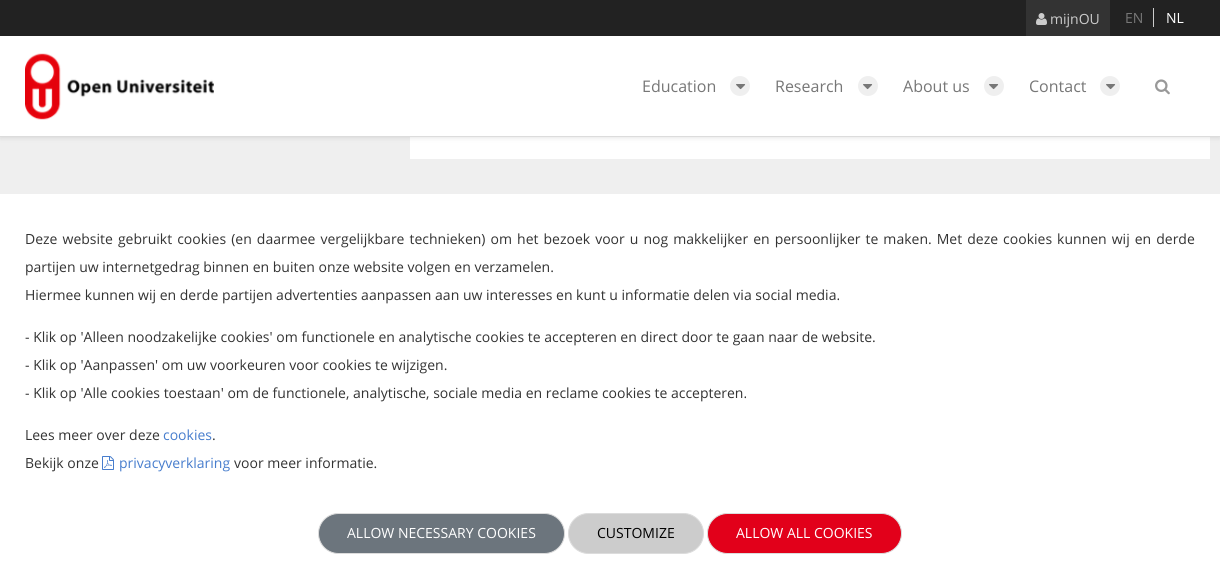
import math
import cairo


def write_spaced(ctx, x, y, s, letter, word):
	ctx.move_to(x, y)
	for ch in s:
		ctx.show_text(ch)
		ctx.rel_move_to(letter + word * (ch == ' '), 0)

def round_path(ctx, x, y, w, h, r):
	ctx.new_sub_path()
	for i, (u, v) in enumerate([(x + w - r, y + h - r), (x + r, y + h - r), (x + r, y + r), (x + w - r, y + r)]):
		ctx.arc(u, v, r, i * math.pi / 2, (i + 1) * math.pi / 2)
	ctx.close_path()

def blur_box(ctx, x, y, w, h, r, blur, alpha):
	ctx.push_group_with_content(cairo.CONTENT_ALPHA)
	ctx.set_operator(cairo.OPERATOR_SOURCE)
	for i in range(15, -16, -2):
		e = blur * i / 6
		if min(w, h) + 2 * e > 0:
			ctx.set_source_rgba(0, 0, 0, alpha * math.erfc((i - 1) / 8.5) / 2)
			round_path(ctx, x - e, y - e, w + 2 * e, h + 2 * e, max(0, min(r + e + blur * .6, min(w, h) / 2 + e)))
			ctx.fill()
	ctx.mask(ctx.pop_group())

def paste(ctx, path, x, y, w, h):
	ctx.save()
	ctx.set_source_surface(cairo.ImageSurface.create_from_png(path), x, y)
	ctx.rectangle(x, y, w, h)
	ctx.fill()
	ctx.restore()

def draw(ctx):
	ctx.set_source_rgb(0.937, 0.937, 0.937)
	ctx.paint()
	ctx.set_source_rgb(1, 1, 1)
	ctx.rectangle(410, 137, 800, 22)
	ctx.fill()
	ctx.set_source_rgb(0, 0, 0)
	blur_box(ctx, 0, 1, 1220, 137, 0, 2.5, 0.1)
	ctx.set_source_rgb(0.863, 0.863, 0.863)
	ctx.rectangle(0, 136, 1220, 1)
	ctx.fill()
	ctx.set_source_rgb(0.133, 0.133, 0.133)
	ctx.rectangle(0, 0, 1220, 36)
	ctx.fill()
	ctx.set_source_rgb(0.2, 0.2, 0.2)
	ctx.rectangle(1026, 0, 84, 36)
	ctx.fill()
	paste(ctx, 'media/1.png', 1036, 13, 11, 12)
	ctx.select_font_face('Open Sans')
	ctx.set_font_size(14)
	ctx.set_source_rgb(0.8, 0.8, 0.8)
	ctx.move_to(1050, 24)
	ctx.show_text('mijnOU')
	ctx.set_source_rgb(0.467, 0.467, 0.467)
	ctx.move_to(1125, 23)
	ctx.show_text('EN')
	ctx.set_source_rgb(0.8, 0.8, 0.8)
	ctx.rectangle(1153, 8, 1, 19)
	ctx.fill()
	ctx.set_source_rgb(1, 1, 1)
	ctx.move_to(1166, 23)
	ctx.show_text('NL')
	ctx.rectangle(0, 36, 1220, 100)
	ctx.fill()
	paste(ctx, 'media/2.png', 25, 53, 189, 67)
	ctx.set_font_size(16)
	ctx.set_source_rgb(0.467, 0.467, 0.467)
	ctx.move_to(642, 92)
	ctx.show_text('Education')
	ctx.set_source_rgb(0.937, 0.937, 0.937)
	ctx.new_path()
	ctx.arc(740, 86, 10, 0, 2 * math.pi)
	ctx.fill()
	paste(ctx, 'media/3.png', 736, 84, 10, 6)
	ctx.set_source_rgb(0.467, 0.467, 0.467)
	ctx.move_to(775, 92)
	ctx.show_text('Research')
	ctx.set_source_rgb(0.937, 0.937, 0.937)
	ctx.new_path()
	ctx.arc(868, 86, 10, 0, 2 * math.pi)
	ctx.fill()
	paste(ctx, 'media/3.png', 863, 84, 10, 6)
	ctx.set_source_rgb(0.467, 0.467, 0.467)
	ctx.move_to(903, 92)
	ctx.show_text('About us')
	ctx.set_source_rgb(0.937, 0.937, 0.937)
	ctx.new_path()
	ctx.arc(994, 86, 10, 0, 2 * math.pi)
	ctx.fill()
	paste(ctx, 'media/3.png', 989, 84, 10, 6)
	ctx.set_source_rgb(0.467, 0.467, 0.467)
	ctx.move_to(1029, 92)
	ctx.show_text('Contact')
	ctx.set_source_rgb(0.937, 0.937, 0.937)
	ctx.new_path()
	ctx.arc(1110, 86, 10, 0, 2 * math.pi)
	ctx.fill()
	paste(ctx, 'media/3.png', 1106, 84, 10, 6)
	paste(ctx, 'media/4.png', 1155, 79, 15, 16)
	ctx.set_source_rgb(1, 1, 1)
	ctx.rectangle(0, 194, 1220, 380)
	ctx.fill()
	ctx.set_font_size(14)
	ctx.set_source_rgb(0.2, 0.2, 0.2)
	write_spaced(ctx, 25, 244, 'Deze website gebruikt cookies (en daarmee vergelijkbare technieken) om het bezoek voor u nog makkelijker en persoonlijker te maken. Met deze cookies kunnen wij en derde', 0, 1.4)
	for x, y, s in [
		(25, 272, 'partijen uw internetgedrag binnen en buiten onze website volgen en verzamelen.'),
		(25, 300, 'Hiermee kunnen wij en derde partijen advertenties aanpassen aan uw interesses en kunt u informatie delen via social media.'),
		(25, 342, '- Klik op \'Alleen noodzakelijke cookies\' om functionele en analytische cookies te accepteren en direct door te gaan naar de website.'),
		(25, 370, '- Klik op \'Aanpassen\' om uw voorkeuren voor cookies te wijzigen.'),
		(25, 398, '- Klik op \'Alle cookies toestaan\' om de functionele, analytische, sociale media en reclame cookies te accepteren.'),
		(25, 440, 'Lees meer over deze'),
	]:
		ctx.move_to(x, y)
		ctx.show_text(s)
	ctx.set_source_rgb(0.278, 0.49, 0.804)
	ctx.move_to(163, 440)
	ctx.show_text('cookies')
	ctx.set_source_rgb(0.2, 0.2, 0.2)
	ctx.move_to(212, 440)
	ctx.show_text('.')
	ctx.move_to(25, 468)
	ctx.show_text('Bekijk onze')
	paste(ctx, 'media/5.png', 102, 456, 12, 14)
	ctx.set_source_rgb(0.278, 0.49, 0.804)
	ctx.move_to(119, 468)
	ctx.show_text('privacyverklaring')
	ctx.set_source_rgb(0.2, 0.2, 0.2)
	ctx.move_to(234, 468)
	ctx.show_text('voor meer informatie.')
	ctx.set_source_rgb(0.424, 0.459, 0.49)
	round_path(ctx, 318.5, 513.5, 246, 40, 20)
	ctx.fill_preserve()
	ctx.set_source_rgb(0.863, 0.863, 0.863)
	ctx.set_line_width(1)
	ctx.stroke()
	ctx.set_source_rgb(1, 1, 1)
	ctx.move_to(347, 538)
	ctx.show_text('ALLOW NECESSARY COOKIES')
	ctx.set_source_rgb(0.8, 0.8, 0.8)
	round_path(ctx, 568.5, 513.5, 135, 40, 20)
	ctx.fill_preserve()
	ctx.set_source_rgb(0.863, 0.863, 0.863)
	ctx.stroke()
	ctx.set_source_rgb(0, 0, 0)
	ctx.move_to(597, 538)
	ctx.show_text('CUSTOMIZE')
	ctx.set_source_rgb(0.886, 0, 0.102)
	round_path(ctx, 707.5, 513.5, 194, 40, 20)
	ctx.fill_preserve()
	ctx.set_source_rgb(0.863, 0.863, 0.863)
	ctx.stroke()
	ctx.set_source_rgb(1, 1, 1)
	ctx.move_to(736, 538)
	ctx.show_text('ALLOW ALL COOKIES')


surface = cairo.ImageSurface(cairo.FORMAT_RGB24, 1220, 574)
ctx = cairo.Context(surface)
options = cairo.FontOptions()
options.set_hint_metrics(cairo.HINT_METRICS_OFF)
options.set_hint_style(cairo.HINT_STYLE_NONE)
ctx.set_font_options(options)
ctx.set_miter_limit(4)
draw(ctx)
surface.write_to_png('image.png')
